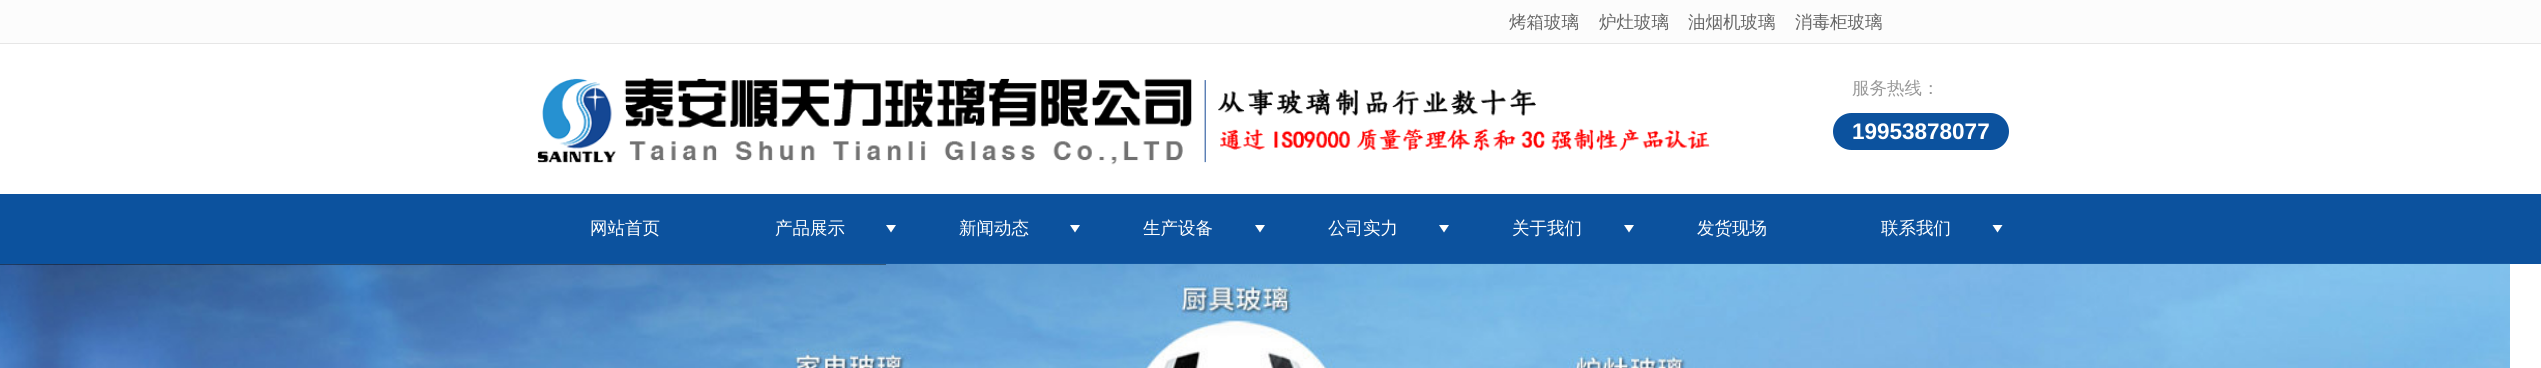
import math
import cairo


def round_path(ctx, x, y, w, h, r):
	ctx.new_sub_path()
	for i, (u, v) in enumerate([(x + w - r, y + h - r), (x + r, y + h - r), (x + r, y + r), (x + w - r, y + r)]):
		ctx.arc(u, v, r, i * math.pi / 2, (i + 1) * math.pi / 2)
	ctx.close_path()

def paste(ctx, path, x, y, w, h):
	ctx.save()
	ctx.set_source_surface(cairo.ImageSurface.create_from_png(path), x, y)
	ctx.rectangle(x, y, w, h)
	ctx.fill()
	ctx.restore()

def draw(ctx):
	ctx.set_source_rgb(1, 1, 1)
	ctx.paint()
	ctx.set_source_rgb(0.988, 0.988, 0.988)
	ctx.rectangle(0, 0, 2541, 43)
	ctx.fill()
	ctx.set_source_rgb(0.902, 0.902, 0.902)
	ctx.rectangle(0, 43, 2541, 1)
	ctx.fill()
	ctx.select_font_face('WenQuanYi Zen Hei Medium')
	ctx.set_font_size(17.5)
	ctx.set_source_rgb(0.4, 0.4, 0.4)
	for x, y, s in [
		(1509, 28, '烤箱玻璃'),
		(1599, 28, '炉灶玻璃'),
		(1688, 28, '油烟机玻璃'),
		(1795, 28, '消毒柜玻璃'),
	]:
		ctx.move_to(x, y)
		ctx.show_text(s)
	paste(ctx, 'media/1.png', 537, 78, 1173, 87)
	ctx.set_source_rgb(0.6, 0.6, 0.6)
	ctx.move_to(1852, 94)
	ctx.show_text('服务热线：')
	ctx.set_source_rgb(0.047, 0.322, 0.62)
	round_path(ctx, 1833, 113, 176, 37, 18.5)
	ctx.fill()
	ctx.select_font_face('Liberation Sans', cairo.FONT_SLANT_NORMAL, cairo.FONT_WEIGHT_BOLD)
	ctx.set_font_size(22.5)
	ctx.set_source_rgb(1, 1, 1)
	ctx.move_to(1852, 139)
	ctx.show_text('19953878077')
	ctx.set_source_rgb(0.047, 0.322, 0.62)
	ctx.rectangle(0, 194, 2541, 70)
	ctx.fill()
	ctx.select_font_face('WenQuanYi Zen Hei Medium')
	ctx.set_font_size(17.5)
	ctx.set_source_rgb(1, 1, 1)
	ctx.move_to(590, 234)
	ctx.show_text('网站首页')
	ctx.move_to(775, 234)
	ctx.show_text('产品展示')
	ctx.new_path()
	ctx.move_to(886, 225)
	ctx.line_to(896, 225)
	ctx.line_to(891, 232.5)
	ctx.close_path()
	ctx.fill()
	ctx.move_to(959, 234)
	ctx.show_text('新闻动态')
	ctx.new_path()
	ctx.move_to(1070, 225)
	ctx.line_to(1080, 225)
	ctx.line_to(1075, 232.5)
	ctx.close_path()
	ctx.fill()
	ctx.move_to(1143, 234)
	ctx.show_text('生产设备')
	ctx.new_path()
	ctx.move_to(1255, 225)
	ctx.line_to(1265, 225)
	ctx.line_to(1260, 232.5)
	ctx.close_path()
	ctx.fill()
	ctx.move_to(1328, 234)
	ctx.show_text('公司实力')
	ctx.new_path()
	ctx.move_to(1439, 225)
	ctx.line_to(1449, 225)
	ctx.line_to(1444, 232.5)
	ctx.close_path()
	ctx.fill()
	ctx.move_to(1512, 234)
	ctx.show_text('关于我们')
	ctx.new_path()
	ctx.move_to(1624, 225)
	ctx.line_to(1634, 225)
	ctx.line_to(1629, 232.5)
	ctx.close_path()
	ctx.fill()
	ctx.move_to(1697, 234)
	ctx.show_text('发货现场')
	ctx.move_to(1881, 234)
	ctx.show_text('联系我们')
	ctx.new_path()
	ctx.move_to(1992.5, 225)
	ctx.line_to(2002.5, 225)
	ctx.line_to(1997.5, 232.5)
	ctx.close_path()
	ctx.fill()
	paste(ctx, 'media/2.png', 0, 263, 2510, 105)
	ctx.set_source_rgba(0, 0, 0, 0.4)
	ctx.rectangle(0, 264, 886, 1)
	ctx.fill()


surface = cairo.ImageSurface(cairo.FORMAT_RGB24, 2541, 368)
ctx = cairo.Context(surface)
options = cairo.FontOptions()
options.set_hint_metrics(cairo.HINT_METRICS_OFF)
options.set_hint_style(cairo.HINT_STYLE_NONE)
ctx.set_font_options(options)
ctx.set_miter_limit(4)
draw(ctx)
surface.write_to_png('image.png')
